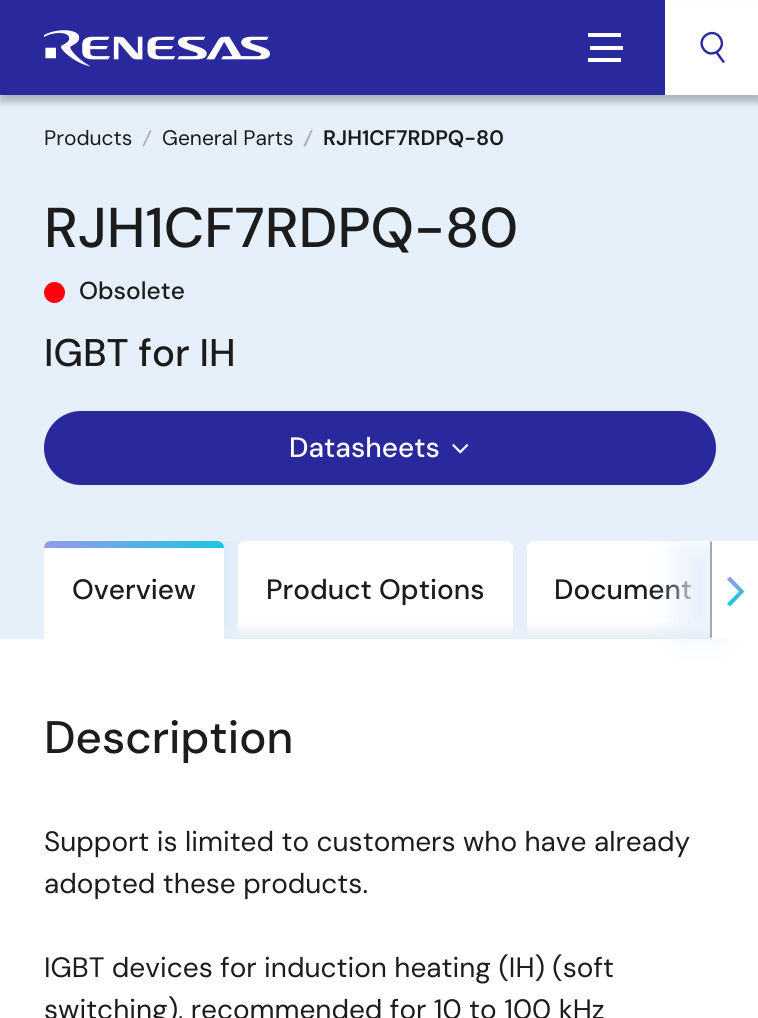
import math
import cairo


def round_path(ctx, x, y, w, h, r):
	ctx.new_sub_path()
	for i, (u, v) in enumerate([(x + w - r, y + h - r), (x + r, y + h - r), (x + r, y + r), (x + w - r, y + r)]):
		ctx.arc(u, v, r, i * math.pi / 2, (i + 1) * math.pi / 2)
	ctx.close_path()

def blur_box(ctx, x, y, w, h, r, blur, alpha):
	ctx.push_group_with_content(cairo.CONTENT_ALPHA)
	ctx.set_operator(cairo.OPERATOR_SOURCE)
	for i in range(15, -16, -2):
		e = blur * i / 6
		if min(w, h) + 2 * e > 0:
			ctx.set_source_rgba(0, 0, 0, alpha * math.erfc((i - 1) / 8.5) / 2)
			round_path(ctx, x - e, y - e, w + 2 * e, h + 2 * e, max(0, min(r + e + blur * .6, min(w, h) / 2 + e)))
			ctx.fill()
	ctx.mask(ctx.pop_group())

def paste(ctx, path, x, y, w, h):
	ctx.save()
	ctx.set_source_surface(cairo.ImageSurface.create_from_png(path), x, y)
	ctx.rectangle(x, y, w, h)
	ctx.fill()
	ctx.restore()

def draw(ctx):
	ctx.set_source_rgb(1, 1, 1)
	ctx.paint()
	ctx.set_source_rgb(0.898, 0.941, 0.984)
	ctx.rectangle(0, 95, 758, 544)
	ctx.fill()
	ctx.set_source_rgb(0, 0, 0)
	blur_box(ctx, 0, 7, 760, 95, 0, 3.5, 0.25)
	ctx.set_source_rgb(0.165, 0.157, 0.616)
	ctx.rectangle(0, 0, 665, 95)
	ctx.fill()
	paste(ctx, 'media/1.png', 44, 30, 226, 37)
	ctx.set_source_rgb(1, 1, 1)
	ctx.rectangle(588, 33, 33, 4)
	ctx.rectangle(588, 58, 33, 4)
	ctx.rectangle(590, 46, 33, 4)
	ctx.rectangle(665, 1, 93, 94)
	ctx.fill()
	ctx.new_path()
	ctx.move_to(717, 53)
	ctx.line_to(724, 62.5)
	ctx.move_to(720, 37.5)
	ctx.curve_to(727.5, 48.5, 711, 60, 703.5, 49)
	ctx.curve_to(696, 38, 712.5, 26.5, 720, 37.5)
	ctx.close_path()
	ctx.set_source_rgb(0.165, 0.157, 0.616)
	ctx.set_line_width(2.4)
	ctx.stroke()
	ctx.select_font_face('DM Sans')
	ctx.set_font_size(21)
	ctx.set_source_rgb(0.11, 0.11, 0.11)
	ctx.move_to(44, 145)
	ctx.show_text('Products')
	ctx.set_source_rgb(0.663, 0.663, 0.663)
	ctx.new_path()
	ctx.move_to(150, 130)
	ctx.line_to(151.5, 130.5)
	ctx.line_to(144, 146.5)
	ctx.line_to(142.5, 146)
	ctx.close_path()
	ctx.fill()
	ctx.set_source_rgb(0.11, 0.11, 0.11)
	ctx.move_to(162, 145)
	ctx.show_text('General Parts')
	ctx.set_source_rgb(0.663, 0.663, 0.663)
	ctx.new_path()
	ctx.move_to(311, 130)
	ctx.line_to(312.5, 130.5)
	ctx.line_to(305.5, 146.5)
	ctx.line_to(303.5, 146)
	ctx.close_path()
	ctx.fill()
	ctx.select_font_face('DM Sans SemiBold')
	ctx.set_source_rgb(0.11, 0.11, 0.11)
	ctx.move_to(323, 145)
	ctx.show_text('RJH1CF7RDPQ-80')
	ctx.select_font_face('DM Sans Medium')
	ctx.set_font_size(56)
	ctx.move_to(44, 247)
	ctx.show_text('RJH1CF7RDPQ-80')
	ctx.set_source_rgb(1, 0, 0.059)
	ctx.new_path()
	ctx.arc(54.5, 292.5, 10.5, 0, 2 * math.pi)
	ctx.fill()
	ctx.set_font_size(24.5)
	ctx.set_source_rgb(0.11, 0.11, 0.11)
	ctx.move_to(79, 299)
	ctx.show_text('Obsolete')
	ctx.set_font_size(38.5)
	ctx.move_to(44, 366)
	ctx.show_text('IGBT for IH')
	ctx.set_source_rgb(0.165, 0.157, 0.616)
	round_path(ctx, 44, 411, 672, 74, 37)
	ctx.fill()
	ctx.set_font_size(28)
	ctx.set_source_rgb(1, 1, 1)
	ctx.move_to(289, 457)
	ctx.show_text('Datasheets')
	paste(ctx, 'media/2.png', 452, 443, 17, 11)
	ctx.save()
	ctx.rectangle(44, 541, 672, 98)
	ctx.clip()
	ctx.set_source_rgb(0.698, 0.784, 0.875)
	blur_box(ctx, 44, 532, 180, 98, 7, 9, 0.35)
	ctx.restore()
	ctx.new_path()
	ctx.move_to(51, 541)
	ctx.line_to(217, 541)
	ctx.curve_to(221, 541, 224, 544, 224, 548)
	ctx.line_to(224, 639)
	ctx.line_to(44, 639)
	ctx.line_to(44, 548)
	ctx.curve_to(44, 544, 47, 541, 51, 541)
	ctx.close_path()
	ctx.fill()
	gradient = cairo.LinearGradient(44, 544, 224, 544)
	gradient.add_color_stop_rgba(0, 0.592, 0.604, 0.922, 1)
	gradient.add_color_stop_rgba(1, 0.11, 0.776, 0.871, 1)
	ctx.set_source(gradient)
	ctx.new_path()
	ctx.move_to(51, 541)
	ctx.line_to(217, 541)
	ctx.curve_to(221, 541, 224, 544, 224, 548)
	ctx.line_to(44, 548)
	ctx.curve_to(44, 544, 47, 541, 51, 541)
	ctx.close_path()
	ctx.fill()
	ctx.set_source_rgb(0.11, 0.11, 0.11)
	ctx.move_to(72, 599)
	ctx.show_text('Overview')
	ctx.set_source_rgb(1, 1, 1)
	ctx.new_path()
	ctx.move_to(245, 541)
	ctx.line_to(506, 541)
	ctx.curve_to(510, 541, 513, 544, 513, 548)
	ctx.line_to(513, 639)
	ctx.line_to(238, 639)
	ctx.line_to(238, 548)
	ctx.curve_to(238, 544, 241, 541, 245, 541)
	ctx.close_path()
	ctx.fill()
	ctx.set_source_rgb(0.11, 0.11, 0.11)
	ctx.move_to(266, 599)
	ctx.show_text('Product Options')
	gradient = cairo.LinearGradient(375, 621, 375, 639)
	gradient.add_color_stop_rgba(0, 1, 1, 1, 1)
	gradient.add_color_stop_rgba(1, 0.894, 0.925, 0.957, 1)
	ctx.set_source(gradient)
	ctx.rectangle(238, 623, 275, 16)
	ctx.fill()
	ctx.set_source_rgb(1, 1, 1)
	ctx.new_path()
	ctx.move_to(534, 541)
	ctx.line_to(716, 541)
	ctx.line_to(716, 639)
	ctx.line_to(527, 639)
	ctx.line_to(527, 548)
	ctx.curve_to(527, 544, 530, 541, 534, 541)
	ctx.close_path()
	ctx.fill()
	ctx.set_source_rgb(0.11, 0.11, 0.11)
	ctx.move_to(554, 599)
	ctx.show_text('Document')
	gradient = cairo.LinearGradient(657, 621, 657, 639)
	gradient.add_color_stop_rgba(0, 1, 1, 1, 1)
	gradient.add_color_stop_rgba(1, 0.894, 0.925, 0.957, 1)
	ctx.set_source(gradient)
	ctx.rectangle(527, 623, 184, 16)
	ctx.fill()
	ctx.set_source_rgb(0.898, 0.941, 0.984)
	blur_box(ctx, 681, 546, 38, 88, 0, 15, 1)
	ctx.set_source_rgb(1, 1, 1)
	ctx.rectangle(711, 541, 47, 98)
	ctx.fill()
	ctx.set_source_rgb(0.663, 0.659, 0.659)
	ctx.new_path()
	ctx.move_to(710, 639)
	ctx.line_to(710, 541)
	ctx.line_to(712, 542)
	ctx.line_to(712, 637)
	ctx.close_path()
	ctx.fill()
	gradient = cairo.LinearGradient(737, 558, 737, 621)
	gradient.add_color_stop_rgba(0.3, 0.592, 0.604, 0.922, 1)
	gradient.add_color_stop_rgba(0.7, 0.11, 0.776, 0.871, 1)
	ctx.set_source(gradient)
	ctx.new_path()
	ctx.move_to(739, 591.5)
	ctx.line_to(727, 579.5)
	ctx.line_to(730, 576.5)
	ctx.line_to(744.5, 591.5)
	ctx.line_to(730, 606.5)
	ctx.line_to(727, 603.5)
	ctx.close_path()
	ctx.fill()
	ctx.set_font_size(45.5)
	ctx.set_source_rgb(0.11, 0.11, 0.11)
	ctx.move_to(44, 753)
	ctx.show_text('Description')
	ctx.select_font_face('DM Sans')
	ctx.set_font_size(28)
	for x, y, s in [
		(44, 851, 'Support is limited to customers who have already'),
		(44, 893, 'adopted these products.'),
		(44, 977, 'IGBT devices for induction heating (IH) (soft'),
		(44, 1019, 'switching), recommended for 10 to 100 kHz'),
	]:
		ctx.move_to(x, y)
		ctx.show_text(s)


surface = cairo.ImageSurface(cairo.FORMAT_RGB24, 758, 1018)
ctx = cairo.Context(surface)
options = cairo.FontOptions()
options.set_hint_metrics(cairo.HINT_METRICS_OFF)
options.set_hint_style(cairo.HINT_STYLE_NONE)
ctx.set_font_options(options)
ctx.set_miter_limit(4)
draw(ctx)
surface.write_to_png('image.png')
